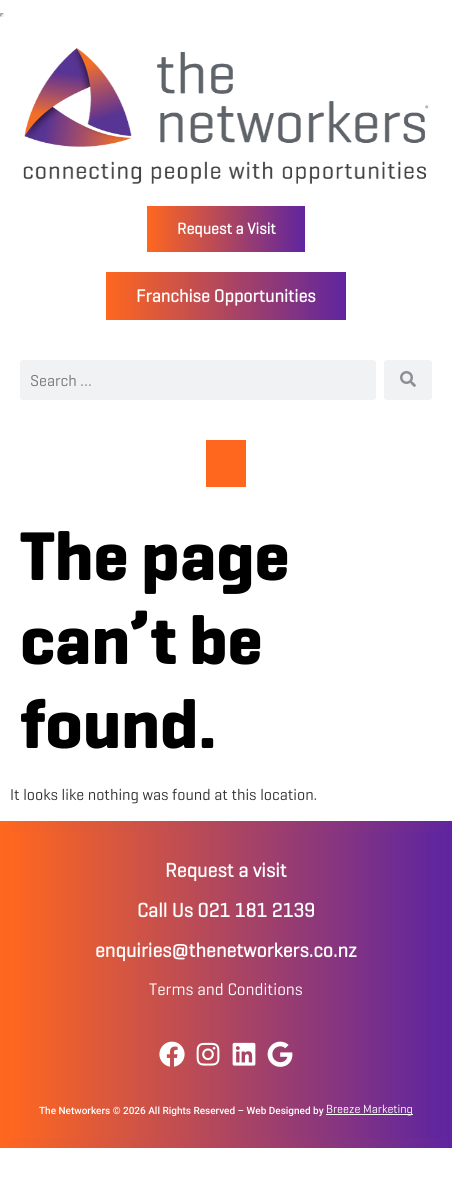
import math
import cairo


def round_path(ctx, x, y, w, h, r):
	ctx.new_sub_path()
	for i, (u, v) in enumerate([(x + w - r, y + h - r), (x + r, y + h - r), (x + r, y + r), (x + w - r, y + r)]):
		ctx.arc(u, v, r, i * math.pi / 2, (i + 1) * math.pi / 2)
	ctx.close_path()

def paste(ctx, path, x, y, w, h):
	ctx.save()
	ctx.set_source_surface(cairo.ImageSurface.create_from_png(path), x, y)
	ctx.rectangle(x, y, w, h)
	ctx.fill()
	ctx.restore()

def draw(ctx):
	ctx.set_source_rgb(1, 1, 1)
	ctx.paint()
	ctx.set_source_rgb(0.624, 0.624, 0.624)
	ctx.new_path()
	ctx.move_to(0, 13)
	ctx.line_to(4, 13)
	ctx.line_to(2, 15)
	ctx.close_path()
	ctx.fill()
	ctx.set_source_rgb(0.933, 0.933, 0.933)
	ctx.new_path()
	ctx.move_to(4, 13)
	ctx.line_to(4, 17)
	ctx.line_to(2, 15)
	ctx.close_path()
	ctx.fill()
	ctx.new_path()
	ctx.move_to(4, 17)
	ctx.line_to(0, 17)
	ctx.line_to(2, 15)
	ctx.close_path()
	ctx.fill()
	ctx.set_source_rgb(0.624, 0.624, 0.624)
	ctx.new_path()
	ctx.move_to(0, 17)
	ctx.line_to(0, 13)
	ctx.line_to(2, 15)
	ctx.close_path()
	ctx.fill()
	paste(ctx, 'media/1.png', 23, 48, 406, 136)
	gradient = cairo.LinearGradient(147, 229, 305, 229)
	gradient.add_color_stop_rgba(0, 1, 0.404, 0.122, 1)
	gradient.add_color_stop_rgba(1, 0.373, 0.145, 0.624, 1)
	ctx.set_source(gradient)
	ctx.rectangle(147, 206, 158, 46)
	ctx.fill()
	ctx.select_font_face('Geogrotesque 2', cairo.FONT_SLANT_NORMAL, cairo.FONT_WEIGHT_BOLD)
	ctx.set_font_size(16)
	ctx.set_source_rgb(1, 1, 1)
	ctx.move_to(177, 234)
	ctx.show_text('Request a Visit')
	gradient = cairo.LinearGradient(106, 296, 346, 296)
	gradient.add_color_stop_rgba(0, 1, 0.404, 0.122, 1)
	gradient.add_color_stop_rgba(1, 0.373, 0.145, 0.624, 1)
	ctx.set_source(gradient)
	ctx.rectangle(106, 272, 240, 48)
	ctx.fill()
	ctx.set_font_size(18)
	ctx.set_source_rgb(1, 1, 1)
	ctx.move_to(136, 302)
	ctx.show_text('Franchise Opportunities')
	ctx.set_source_rgb(0.945, 0.949, 0.953)
	round_path(ctx, 20, 360, 356, 40, 3)
	ctx.fill()
	ctx.select_font_face('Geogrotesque')
	ctx.set_font_size(16)
	ctx.set_source_rgb(0.459, 0.459, 0.459)
	ctx.move_to(30, 386)
	ctx.show_text('Search …')
	ctx.set_source_rgb(0.945, 0.949, 0.953)
	round_path(ctx, 384, 360, 48, 40, 3)
	ctx.fill()
	paste(ctx, 'media/2.png', 400, 371, 16, 16)
	ctx.set_source_rgb(1, 0.404, 0.122)
	ctx.rectangle(206, 440, 40, 47)
	ctx.fill()
	ctx.select_font_face('Geogrotesque', cairo.FONT_SLANT_NORMAL, cairo.FONT_WEIGHT_BOLD)
	ctx.set_font_size(70)
	ctx.set_source_rgb(0, 0, 0)
	for x, y, s in [
		(20, 580, 'The page'),
		(20, 664, 'can’t be'),
		(20, 748, 'found.'),
	]:
		ctx.move_to(x, y)
		ctx.show_text(s)
	ctx.select_font_face('Geogrotesque')
	ctx.set_font_size(16)
	ctx.set_source_rgb(0.2, 0.2, 0.2)
	ctx.move_to(10, 800)
	ctx.show_text('It looks like nothing was found at this location.')
	gradient = cairo.LinearGradient(0, 985, 452, 985)
	gradient.add_color_stop_rgba(0, 1, 0.404, 0.122, 1)
	gradient.add_color_stop_rgba(1, 0.373, 0.145, 0.624, 1)
	ctx.set_source(gradient)
	ctx.rectangle(0, 821, 452, 327)
	ctx.fill()
	gradient = cairo.LinearGradient(10, 985, 442, 985)
	gradient.add_color_stop_rgba(0, 1, 0.404, 0.122, 1)
	gradient.add_color_stop_rgba(1, 0.373, 0.145, 0.624, 1)
	ctx.set_source(gradient)
	ctx.rectangle(10, 831, 432, 307)
	ctx.fill()
	ctx.select_font_face('Geogrotesque 2', cairo.FONT_SLANT_NORMAL, cairo.FONT_WEIGHT_BOLD)
	ctx.set_font_size(20)
	ctx.set_source_rgb(1, 1, 1)
	for x, y, s in [
		(165, 877, 'Request a visit'),
		(137, 917, 'Call Us 021 181 2139'),
		(95, 957, 'enquiries@thenetworkers.co.nz'),
	]:
		ctx.move_to(x, y)
		ctx.show_text(s)
	ctx.select_font_face('Geogrotesque')
	ctx.set_font_size(17)
	ctx.move_to(149, 995)
	ctx.show_text('Terms and Conditions')
	paste(ctx, 'media/3.png', 159, 1041, 26, 26)
	paste(ctx, 'media/4.png', 196, 1042, 24, 24)
	paste(ctx, 'media/5.png', 232, 1042, 24, 24)
	paste(ctx, 'media/6.png', 267, 1041, 26, 26)
	ctx.select_font_face('Roboto Medium')
	ctx.set_font_size(10)
	ctx.move_to(39, 1114)
	ctx.show_text('The Networkers © 2026 All Rights Reserved – Web Designed by')
	ctx.rectangle(326, 1114, 87, 1)
	ctx.fill()
	ctx.select_font_face('Geogrotesque')
	ctx.set_font_size(12)
	ctx.move_to(326, 1113)
	ctx.show_text('Breeze Marketing')


surface = cairo.ImageSurface(cairo.FORMAT_RGB24, 452, 1190)
ctx = cairo.Context(surface)
options = cairo.FontOptions()
options.set_hint_metrics(cairo.HINT_METRICS_OFF)
options.set_hint_style(cairo.HINT_STYLE_NONE)
ctx.set_font_options(options)
ctx.set_miter_limit(4)
draw(ctx)
surface.write_to_png('image.png')
